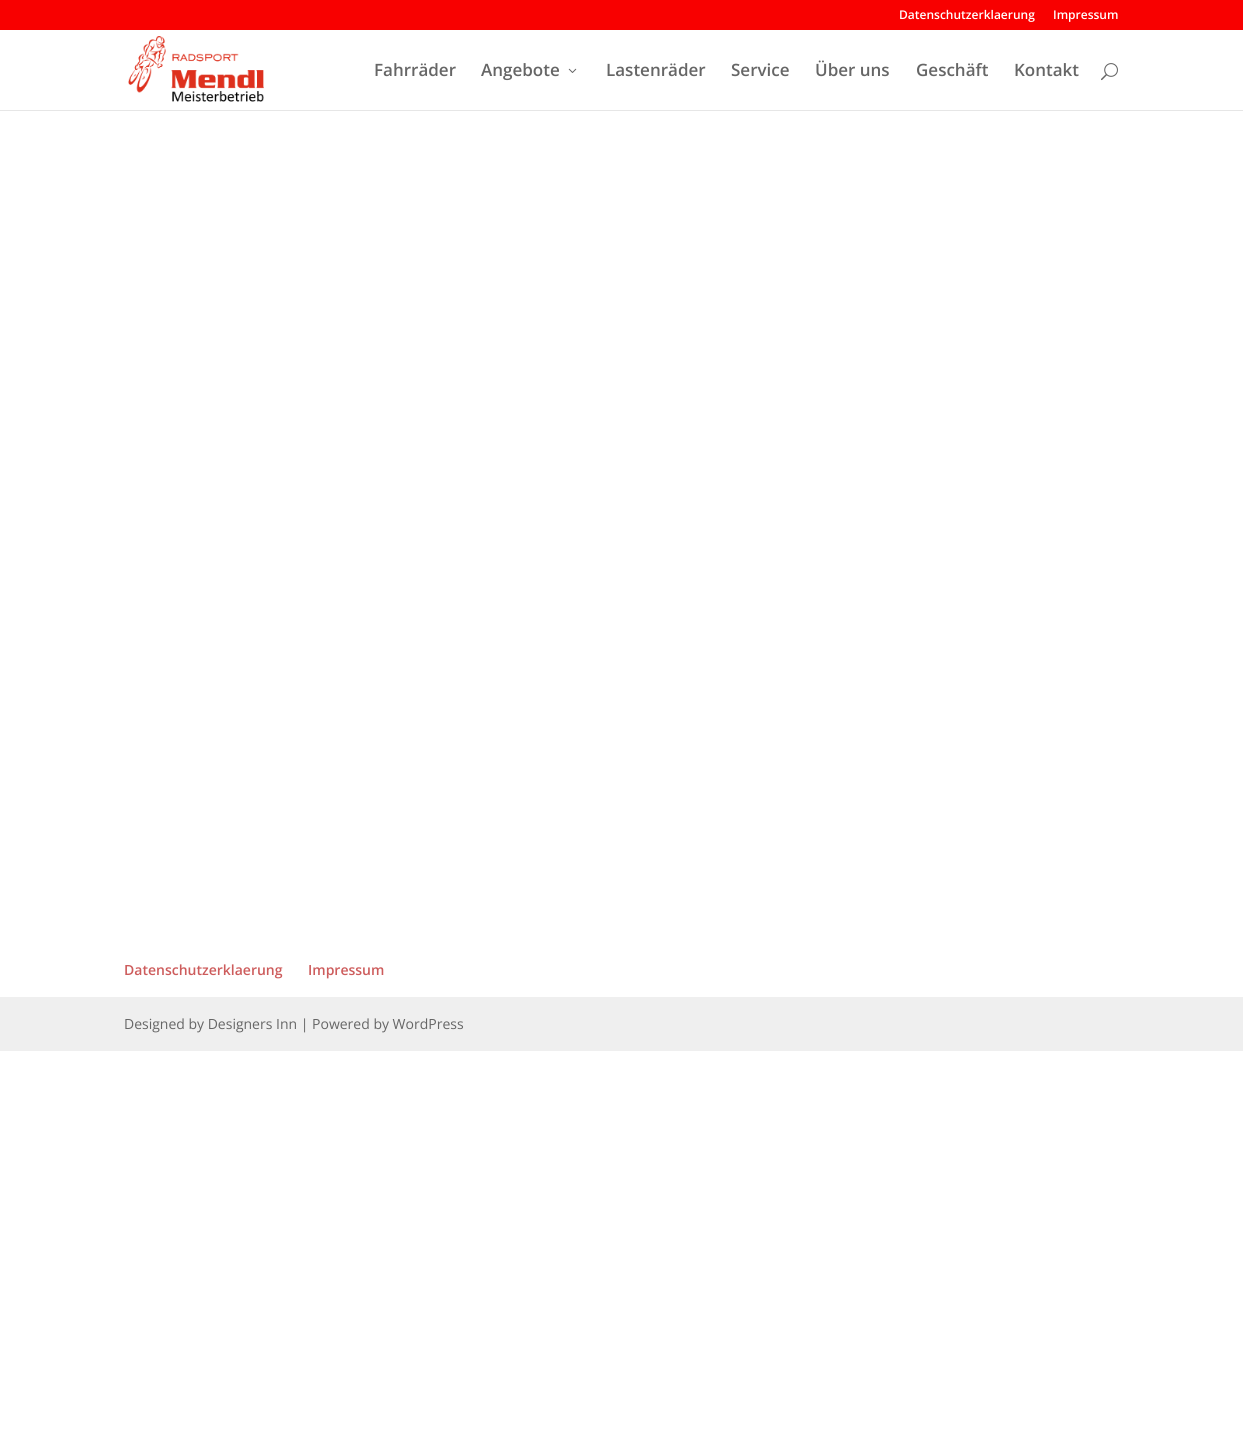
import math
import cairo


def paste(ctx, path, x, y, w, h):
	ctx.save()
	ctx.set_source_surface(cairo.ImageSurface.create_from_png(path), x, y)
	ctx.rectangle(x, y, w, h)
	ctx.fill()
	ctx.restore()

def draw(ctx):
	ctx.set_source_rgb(1, 1, 1)
	ctx.paint()
	ctx.set_source_rgb(0.969, 0, 0)
	ctx.rectangle(0, 0, 1243, 30)
	ctx.fill()
	ctx.select_font_face('Open Sans SemiBold')
	ctx.set_font_size(12)
	ctx.set_source_rgb(1, 1, 1)
	ctx.move_to(899, 19)
	ctx.show_text('Datenschutzerklaerung')
	ctx.move_to(1053, 19)
	ctx.show_text('Impressum')
	ctx.set_source_rgb(0.902, 0.902, 0.902)
	ctx.rectangle(0, 110, 1243, 1)
	ctx.fill()
	paste(ctx, 'media/1.png', 128, 36, 136, 66)
	ctx.set_font_size(17)
	ctx.set_source_rgb(0.4, 0.4, 0.4)
	ctx.move_to(374, 76)
	ctx.show_text('Fahrräder')
	ctx.move_to(481, 76)
	ctx.show_text('Angebote')
	paste(ctx, 'media/2.png', 568, 68, 9, 5)
	for x, y, s in [
		(606, 76, 'Lastenräder'),
		(731, 76, 'Service'),
		(815, 76, 'Über uns'),
		(916, 76, 'Geschäft'),
		(1014, 76, 'Kontakt'),
	]:
		ctx.move_to(x, y)
		ctx.show_text(s)
	paste(ctx, 'media/3.png', 1101, 63, 17, 18)
	ctx.set_font_size(14)
	ctx.set_source_rgb(0.804, 0.361, 0.361)
	ctx.move_to(124, 975)
	ctx.show_text('Datenschutzerklaerung')
	ctx.move_to(308, 975)
	ctx.show_text('Impressum')
	ctx.set_source_rgb(0.937, 0.937, 0.937)
	ctx.rectangle(0, 997, 1243, 54)
	ctx.fill()
	ctx.select_font_face('Open Sans')
	ctx.set_source_rgb(0.4, 0.4, 0.4)
	ctx.move_to(124, 1029)
	ctx.show_text('Designed by Designers Inn | Powered by WordPress')


surface = cairo.ImageSurface(cairo.FORMAT_RGB24, 1243, 1429)
ctx = cairo.Context(surface)
options = cairo.FontOptions()
options.set_hint_metrics(cairo.HINT_METRICS_OFF)
options.set_hint_style(cairo.HINT_STYLE_NONE)
ctx.set_font_options(options)
ctx.set_miter_limit(4)
draw(ctx)
surface.write_to_png('image.png')
